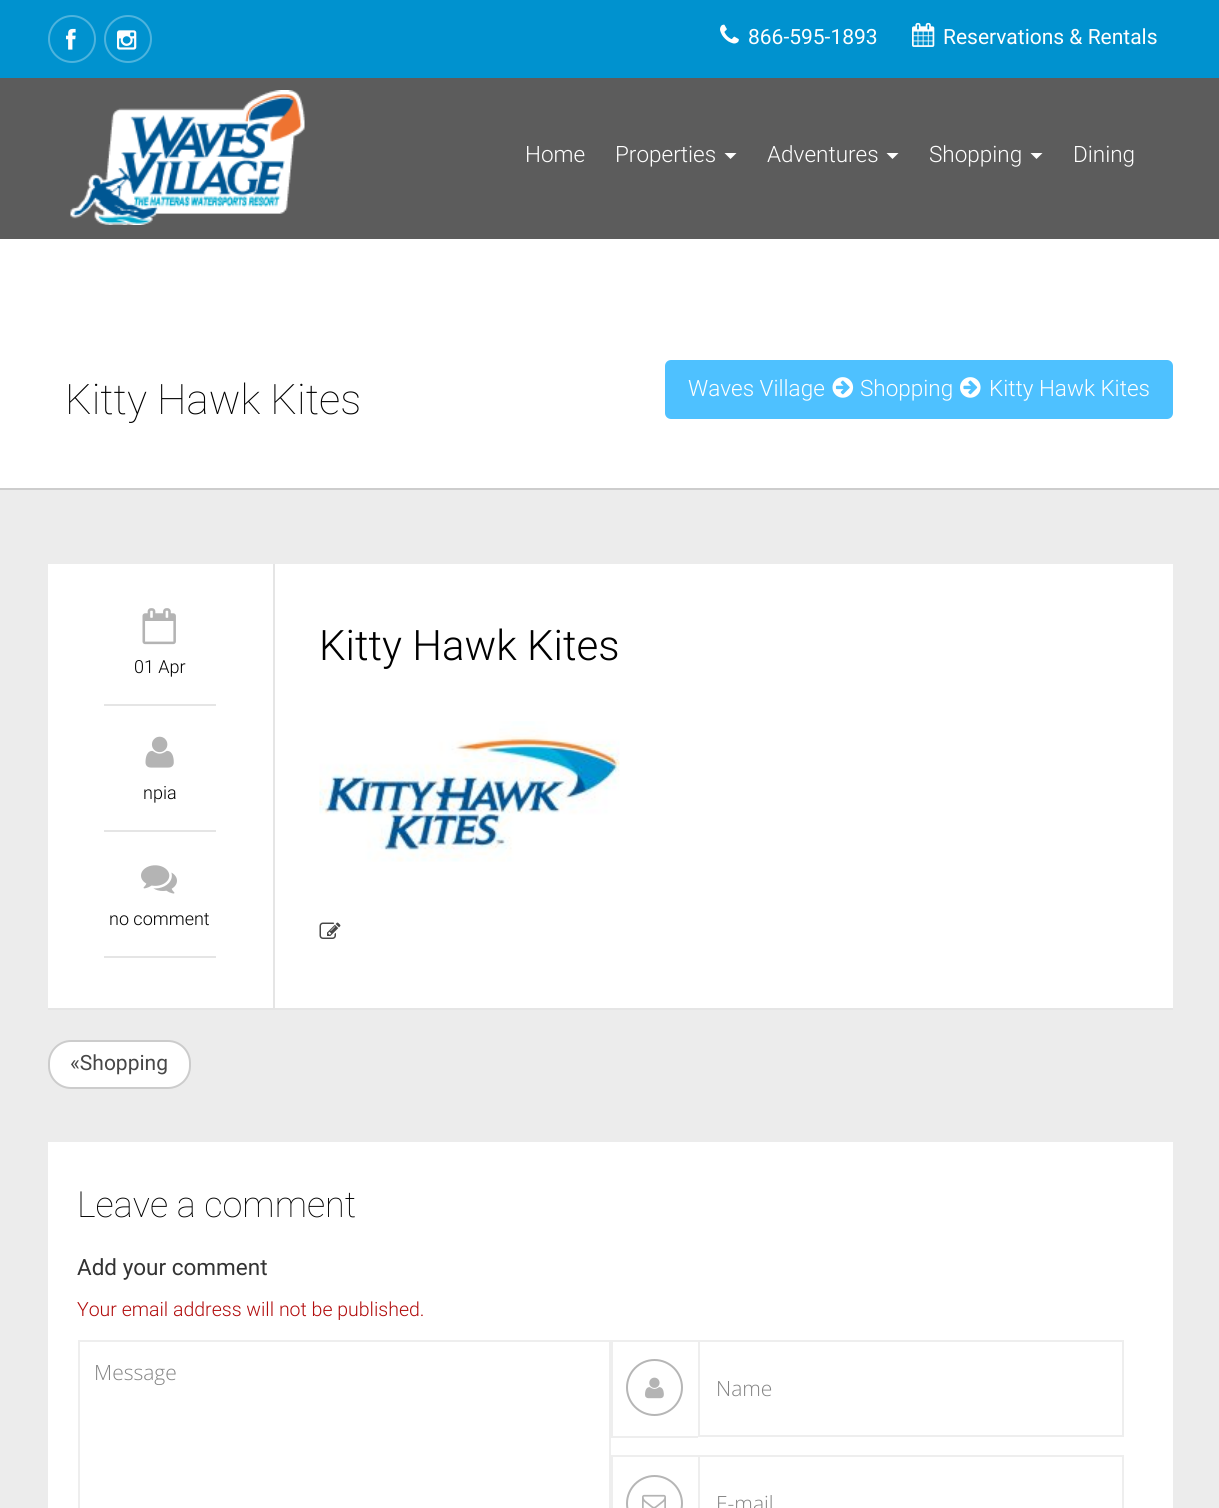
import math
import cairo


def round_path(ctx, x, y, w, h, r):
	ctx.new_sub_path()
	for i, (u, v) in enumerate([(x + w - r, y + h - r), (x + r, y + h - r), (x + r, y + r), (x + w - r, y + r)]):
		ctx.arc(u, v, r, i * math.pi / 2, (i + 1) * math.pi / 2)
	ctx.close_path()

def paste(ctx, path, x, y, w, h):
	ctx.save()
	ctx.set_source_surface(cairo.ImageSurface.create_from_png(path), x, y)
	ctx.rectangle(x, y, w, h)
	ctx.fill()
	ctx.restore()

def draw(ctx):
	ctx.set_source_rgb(0.922, 0.922, 0.925)
	ctx.paint()
	ctx.set_source_rgb(0, 0.573, 0.812)
	ctx.rectangle(0, 0, 1219, 78)
	ctx.fill()
	ctx.arc(72, 39, 23, 0, 2 * math.pi)
	ctx.set_source_rgb(0.302, 0.702, 0.867)
	ctx.stroke()
	paste(ctx, 'media/1.png', 66, 28, 10, 22)
	ctx.arc(128, 39, 23, 0, 2 * math.pi)
	ctx.stroke()
	paste(ctx, 'media/2.png', 117, 30, 20, 20)
	paste(ctx, 'media/3.png', 720, 24, 19, 20)
	ctx.select_font_face('Roboto')
	ctx.set_font_size(21)
	ctx.set_source_rgb(0.996, 0.996, 0.996)
	ctx.move_to(748, 44)
	ctx.show_text('866-595-1893')
	paste(ctx, 'media/4.png', 912, 22, 23, 25)
	ctx.move_to(943, 44)
	ctx.show_text('Reservations & Rentals')
	ctx.set_source_rgb(0.361, 0.361, 0.361)
	ctx.rectangle(0, 78, 1219, 161)
	ctx.fill()
	paste(ctx, 'media/5.png', 70, 90, 235, 135)
	ctx.select_font_face('Roboto Light')
	ctx.set_font_size(22.5)
	ctx.set_source_rgb(0.996, 0.996, 0.996)
	ctx.move_to(525, 162)
	ctx.show_text('Home')
	ctx.move_to(615, 162)
	ctx.show_text('Properties')
	ctx.set_source_rgb(1, 1, 1)
	ctx.new_path()
	ctx.move_to(724.5, 153)
	ctx.line_to(736.5, 153)
	ctx.line_to(730.5, 159)
	ctx.close_path()
	ctx.fill()
	ctx.set_source_rgb(0.996, 0.996, 0.996)
	ctx.move_to(767, 162)
	ctx.show_text('Adventures')
	ctx.set_source_rgb(1, 1, 1)
	ctx.new_path()
	ctx.move_to(886.5, 153)
	ctx.line_to(898.5, 153)
	ctx.line_to(892.5, 159)
	ctx.close_path()
	ctx.fill()
	ctx.set_source_rgb(0.996, 0.996, 0.996)
	ctx.move_to(929, 162)
	ctx.show_text('Shopping')
	ctx.set_source_rgb(1, 1, 1)
	ctx.new_path()
	ctx.move_to(1030.5, 153)
	ctx.line_to(1042.5, 153)
	ctx.line_to(1036.5, 159)
	ctx.close_path()
	ctx.fill()
	ctx.set_source_rgb(0.996, 0.996, 0.996)
	ctx.move_to(1073, 162)
	ctx.show_text('Dining')
	ctx.set_source_rgb(1, 1, 1)
	ctx.rectangle(0, 239, 1219, 249)
	ctx.fill()
	ctx.set_source_rgb(0.804, 0.804, 0.804)
	ctx.rectangle(0, 488, 1219, 2)
	ctx.fill()
	ctx.select_font_face('Roboto Thin')
	ctx.set_font_size(42)
	ctx.set_source_rgb(0, 0, 0)
	ctx.move_to(65, 414)
	ctx.show_text('Kitty Hawk Kites')
	ctx.set_source_rgb(0.306, 0.757, 1)
	round_path(ctx, 665, 360, 508, 59, 6)
	ctx.fill()
	ctx.select_font_face('Roboto Light')
	ctx.set_font_size(22.5)
	ctx.set_source_rgb(0.996, 0.996, 0.996)
	ctx.move_to(688, 396)
	ctx.show_text('Waves Village')
	paste(ctx, 'media/6.png', 832, 377, 22, 21)
	ctx.move_to(860, 396)
	ctx.show_text('Shopping')
	paste(ctx, 'media/7.png', 960, 377, 21, 21)
	ctx.move_to(989, 396)
	ctx.show_text('Kitty Hawk Kites')
	ctx.set_source_rgb(1, 1, 1)
	ctx.rectangle(48, 564, 1125, 444)
	ctx.fill()
	ctx.set_source_rgb(0.898, 0.898, 0.898)
	ctx.rectangle(48, 1008, 1125, 2)
	ctx.rectangle(273, 564, 2, 444)
	ctx.fill()
	ctx.set_font_size(42)
	ctx.set_source_rgb(0, 0, 0)
	ctx.move_to(319, 660)
	ctx.show_text('Kitty Hawk Kites')
	paste(ctx, 'media/8.png', 319, 721, 301, 141)
	paste(ctx, 'media/9.png', 319, 922, 22, 17)
	paste(ctx, 'media/10.png', 142, 608, 34, 37)
	ctx.set_font_size(18)
	ctx.move_to(134, 673)
	ctx.show_text('01 Apr')
	ctx.set_source_rgb(0.898, 0.898, 0.898)
	ctx.rectangle(104, 704, 112, 2)
	ctx.fill()
	paste(ctx, 'media/11.png', 145, 736, 29, 32)
	ctx.set_source_rgb(0, 0, 0)
	ctx.move_to(143, 799)
	ctx.show_text('npia')
	ctx.set_source_rgb(0.898, 0.898, 0.898)
	ctx.rectangle(104, 830, 112, 2)
	ctx.fill()
	paste(ctx, 'media/12.png', 141, 865, 36, 29)
	ctx.set_source_rgb(0, 0, 0)
	ctx.move_to(109, 925)
	ctx.show_text('no comment')
	ctx.set_source_rgb(0.898, 0.898, 0.898)
	ctx.rectangle(104, 956, 112, 2)
	ctx.fill()
	ctx.set_source_rgb(1, 1, 1)
	round_path(ctx, 49, 1041, 141, 47, 22)
	ctx.fill_preserve()
	ctx.set_source_rgb(0.8, 0.8, 0.8)
	ctx.stroke()
	ctx.select_font_face('Roboto')
	ctx.set_font_size(21)
	ctx.set_source_rgb(0.278, 0.278, 0.278)
	ctx.move_to(70, 1070)
	ctx.show_text('«Shopping')
	ctx.set_source_rgb(1, 1, 1)
	ctx.rectangle(48, 1142, 1125, 366)
	ctx.fill()
	ctx.select_font_face('Roboto Thin')
	ctx.set_font_size(36)
	ctx.set_source_rgb(0, 0, 0)
	ctx.move_to(77, 1217)
	ctx.show_text('Leave a comment')
	ctx.select_font_face('Roboto')
	ctx.set_font_size(22.5)
	ctx.set_source_rgb(0.2, 0.2, 0.2)
	ctx.move_to(77, 1275)
	ctx.show_text('Add your comment')
	ctx.select_font_face('Roboto Light')
	ctx.set_font_size(19.5)
	ctx.set_source_rgb(0.694, 0.047, 0.047)
	ctx.move_to(77, 1316)
	ctx.show_text('Your email address will not be published.')
	ctx.rectangle(79, 1341, 531, 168)
	ctx.set_source_rgb(0.933, 0.933, 0.933)
	ctx.stroke()
	ctx.select_font_face('Open Sans Light')
	ctx.set_font_size(21)
	ctx.set_source_rgb(0.518, 0.518, 0.518)
	ctx.move_to(94, 1380)
	ctx.show_text('Message')
	ctx.set_source_rgb(0.933, 0.933, 0.933)
	ctx.rectangle(611, 1340, 87, 2)
	ctx.rectangle(611, 1436, 87, 2)
	ctx.rectangle(611, 1340, 2, 97)
	ctx.fill()
	ctx.arc(654.5, 1387.5, 27.5, 0, 2 * math.pi)
	ctx.set_source_rgb(0.714, 0.714, 0.714)
	ctx.stroke()
	paste(ctx, 'media/13.png', 645, 1377, 19, 22)
	ctx.rectangle(699, 1341, 424, 95)
	ctx.set_source_rgb(0.933, 0.933, 0.933)
	ctx.stroke()
	ctx.set_source_rgb(0.518, 0.518, 0.518)
	ctx.move_to(716, 1396)
	ctx.show_text('Name')
	ctx.set_source_rgb(0.933, 0.933, 0.933)
	ctx.rectangle(611, 1455, 87, 2)
	ctx.fill()
	ctx.rectangle(611, 1455, 2, 53)
	ctx.fill()
	ctx.arc(654.5, 1503.5, 27.5, 0, 2 * math.pi)
	ctx.set_source_rgb(0.714, 0.714, 0.714)
	ctx.stroke()
	paste(ctx, 'media/14.png', 642, 1494, 24, 14)
	ctx.rectangle(699, 1456, 424, 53)
	ctx.set_source_rgb(0.933, 0.933, 0.933)
	ctx.stroke()
	ctx.set_source_rgb(0.518, 0.518, 0.518)
	ctx.move_to(716, 1511)
	ctx.show_text('E-mail')


surface = cairo.ImageSurface(cairo.FORMAT_RGB24, 1219, 1508)
ctx = cairo.Context(surface)
options = cairo.FontOptions()
options.set_hint_metrics(cairo.HINT_METRICS_OFF)
options.set_hint_style(cairo.HINT_STYLE_NONE)
ctx.set_font_options(options)
ctx.set_miter_limit(4)
draw(ctx)
surface.write_to_png('image.png')
